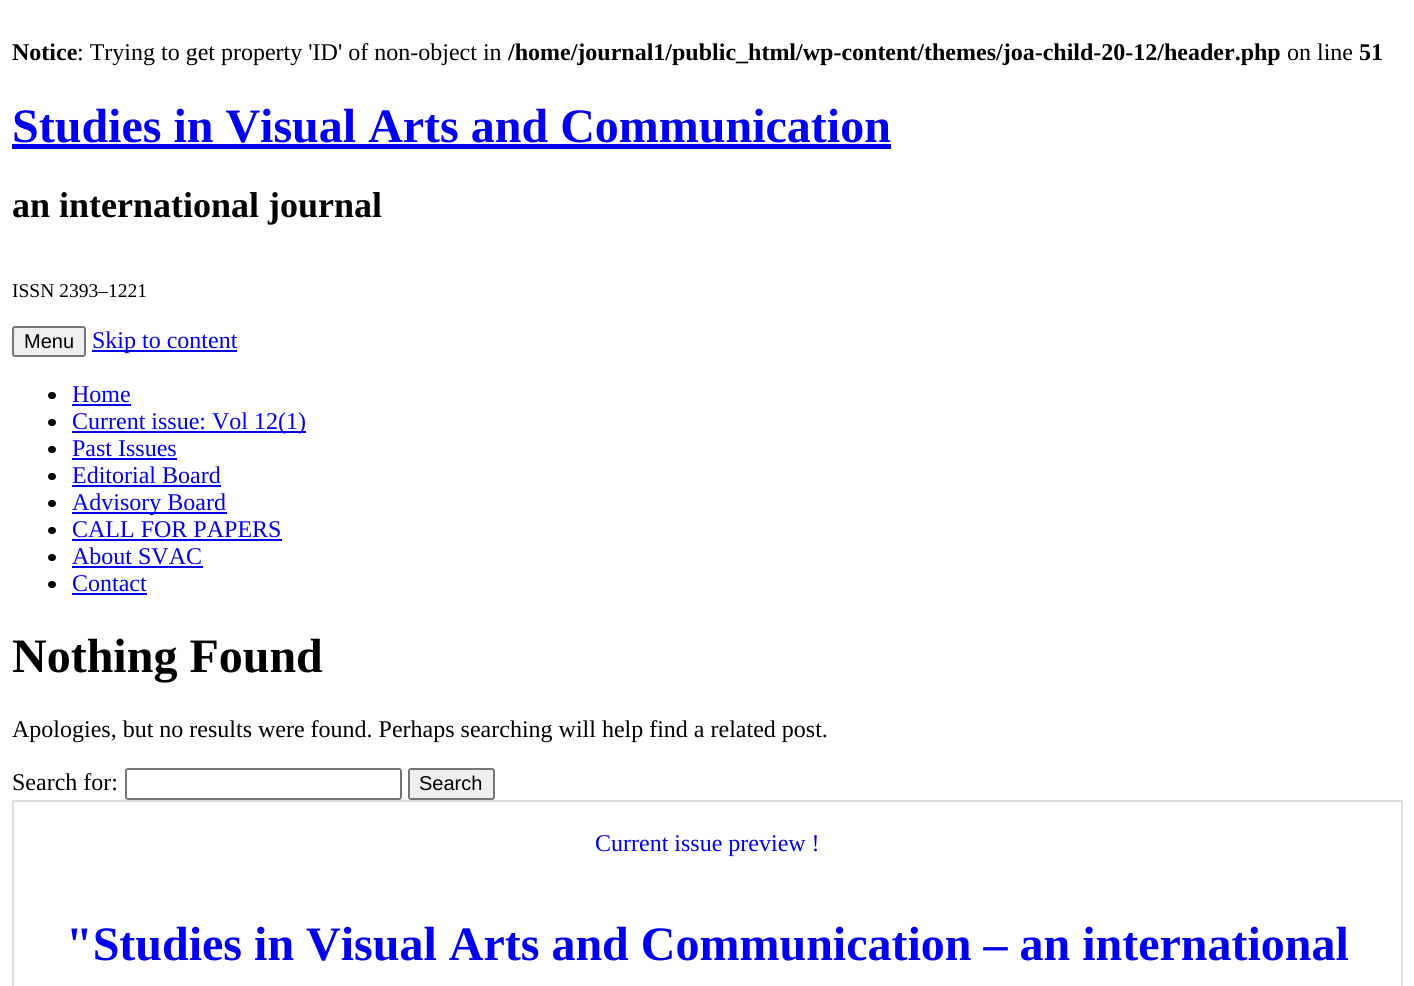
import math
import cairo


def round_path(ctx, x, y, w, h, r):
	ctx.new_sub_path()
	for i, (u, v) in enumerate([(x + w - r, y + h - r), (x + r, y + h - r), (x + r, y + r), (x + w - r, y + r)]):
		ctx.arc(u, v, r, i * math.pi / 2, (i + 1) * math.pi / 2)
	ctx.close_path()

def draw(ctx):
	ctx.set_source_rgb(1, 1, 1)
	ctx.paint()
	ctx.select_font_face('Liberation Serif', cairo.FONT_SLANT_NORMAL, cairo.FONT_WEIGHT_BOLD)
	ctx.set_font_size(24)
	ctx.set_source_rgb(0, 0, 0)
	ctx.move_to(12, 60)
	ctx.show_text('Notice')
	ctx.select_font_face('Liberation Serif')
	ctx.move_to(77, 60)
	ctx.show_text(': Trying to get property \'ID\' of non-object in')
	ctx.select_font_face('Liberation Serif', cairo.FONT_SLANT_NORMAL, cairo.FONT_WEIGHT_BOLD)
	ctx.move_to(508, 60)
	ctx.show_text('/home/journal1/public_html/wp-content/themes/joa-child-20-12/header.php')
	ctx.select_font_face('Liberation Serif')
	ctx.move_to(1287, 60)
	ctx.show_text('on line')
	ctx.select_font_face('Liberation Serif', cairo.FONT_SLANT_NORMAL, cairo.FONT_WEIGHT_BOLD)
	ctx.move_to(1359, 60)
	ctx.show_text('51')
	ctx.set_font_size(48)
	ctx.set_source_rgb(0, 0, 0.933)
	ctx.move_to(12, 142)
	ctx.show_text('Studies in Visual Arts and Communication')
	ctx.rectangle(12, 144, 879, 5)
	ctx.fill()
	ctx.set_font_size(36)
	ctx.set_source_rgb(0, 0, 0)
	ctx.move_to(12, 217)
	ctx.show_text('an international journal')
	ctx.select_font_face('Liberation Serif')
	ctx.set_font_size(19.5)
	ctx.move_to(12, 297)
	ctx.show_text('ISSN 2393–1221')
	ctx.set_source_rgb(0.937, 0.937, 0.937)
	round_path(ctx, 13, 327, 72, 29, 2)
	ctx.fill_preserve()
	ctx.set_source_rgb(0.463, 0.463, 0.463)
	ctx.stroke()
	ctx.select_font_face('Liberation Sans')
	ctx.set_font_size(20)
	ctx.set_source_rgb(0, 0, 0)
	ctx.move_to(24, 348)
	ctx.show_text('Menu')
	ctx.set_source_rgb(0, 0, 0.933)
	ctx.rectangle(92, 350, 145, 2)
	ctx.fill()
	ctx.select_font_face('Liberation Serif')
	ctx.set_font_size(24)
	ctx.move_to(92, 348)
	ctx.show_text('Skip to content')
	ctx.set_source_rgb(0, 0, 0)
	round_path(ctx, 48, 392, 8, 7, 3.5)
	ctx.fill()
	ctx.set_source_rgb(0, 0, 0.933)
	ctx.move_to(72, 402)
	ctx.show_text('Home')
	ctx.rectangle(72, 404, 59, 2)
	ctx.fill()
	ctx.set_source_rgb(0, 0, 0)
	round_path(ctx, 48, 419, 8, 7, 3.5)
	ctx.fill()
	ctx.set_source_rgb(0, 0, 0.933)
	ctx.rectangle(72, 431, 234, 2)
	ctx.fill()
	ctx.move_to(72, 429)
	ctx.show_text('Current issue: Vol 12(1)')
	ctx.set_source_rgb(0, 0, 0)
	round_path(ctx, 48, 446, 8, 7, 3.5)
	ctx.fill()
	ctx.set_source_rgb(0, 0, 0.933)
	ctx.move_to(72, 456)
	ctx.show_text('Past Issues')
	ctx.rectangle(72, 458, 105, 2)
	ctx.fill()
	ctx.set_source_rgb(0, 0, 0)
	round_path(ctx, 48, 473, 8, 7, 3.5)
	ctx.fill()
	ctx.set_source_rgb(0, 0, 0.933)
	ctx.move_to(72, 483)
	ctx.show_text('Editorial Board')
	ctx.rectangle(72, 485, 149, 2)
	ctx.fill()
	ctx.set_source_rgb(0, 0, 0)
	round_path(ctx, 48, 500, 8, 7, 3.5)
	ctx.fill()
	ctx.set_source_rgb(0, 0, 0.933)
	ctx.rectangle(72, 512, 155, 2)
	ctx.fill()
	ctx.move_to(72, 510)
	ctx.show_text('Advisory Board')
	ctx.set_source_rgb(0, 0, 0)
	round_path(ctx, 48, 527, 8, 7, 3.5)
	ctx.fill()
	ctx.set_source_rgb(0, 0, 0.933)
	ctx.move_to(72, 537)
	ctx.show_text('CALL FOR PAPERS')
	ctx.rectangle(72, 539, 210, 2)
	ctx.fill()
	ctx.set_source_rgb(0, 0, 0)
	round_path(ctx, 48, 554, 8, 7, 3.5)
	ctx.fill()
	ctx.set_source_rgb(0, 0, 0.933)
	ctx.move_to(72, 564)
	ctx.show_text('About SVAC')
	ctx.rectangle(72, 566, 131, 2)
	ctx.fill()
	ctx.set_source_rgb(0, 0, 0)
	round_path(ctx, 48, 581, 8, 7, 3.5)
	ctx.fill()
	ctx.set_source_rgb(0, 0, 0.933)
	ctx.move_to(72, 591)
	ctx.show_text('Contact')
	ctx.rectangle(72, 593, 75, 2)
	ctx.fill()
	ctx.select_font_face('Liberation Serif', cairo.FONT_SLANT_NORMAL, cairo.FONT_WEIGHT_BOLD)
	ctx.set_font_size(48)
	ctx.set_source_rgb(0, 0, 0)
	ctx.move_to(12, 672)
	ctx.show_text('Nothing Found')
	ctx.select_font_face('Liberation Serif')
	ctx.set_font_size(24)
	ctx.move_to(12, 737)
	ctx.show_text('Apologies, but no results were found. Perhaps searching will help find a related post.')
	ctx.move_to(12, 790)
	ctx.show_text('Search for:')
	round_path(ctx, 126, 769, 275, 30, 2)
	ctx.set_source_rgb(0.463, 0.463, 0.463)
	ctx.stroke()
	ctx.set_source_rgb(0.937, 0.937, 0.937)
	round_path(ctx, 409, 769, 85, 30, 2)
	ctx.fill_preserve()
	ctx.set_source_rgb(0.463, 0.463, 0.463)
	ctx.stroke()
	ctx.select_font_face('Liberation Sans')
	ctx.set_font_size(20)
	ctx.set_source_rgb(0, 0, 0)
	ctx.move_to(419, 790)
	ctx.show_text('Search')
	ctx.rectangle(13, 801, 1389, 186)
	ctx.set_source_rgb(0.867, 0.867, 0.867)
	ctx.stroke()
	ctx.select_font_face('Liberation Serif')
	ctx.set_font_size(24)
	ctx.set_source_rgb(0, 0, 0.933)
	ctx.move_to(595, 851)
	ctx.show_text('Current issue preview !')
	ctx.select_font_face('Liberation Serif', cairo.FONT_SLANT_NORMAL, cairo.FONT_WEIGHT_BOLD)
	ctx.set_font_size(48)
	ctx.move_to(66, 960)
	ctx.show_text('"Studies in Visual Arts and Communication – an international')


surface = cairo.ImageSurface(cairo.FORMAT_RGB24, 1414, 986)
ctx = cairo.Context(surface)
options = cairo.FontOptions()
options.set_hint_metrics(cairo.HINT_METRICS_OFF)
options.set_hint_style(cairo.HINT_STYLE_NONE)
ctx.set_font_options(options)
ctx.set_miter_limit(4)
draw(ctx)
surface.write_to_png('image.png')
